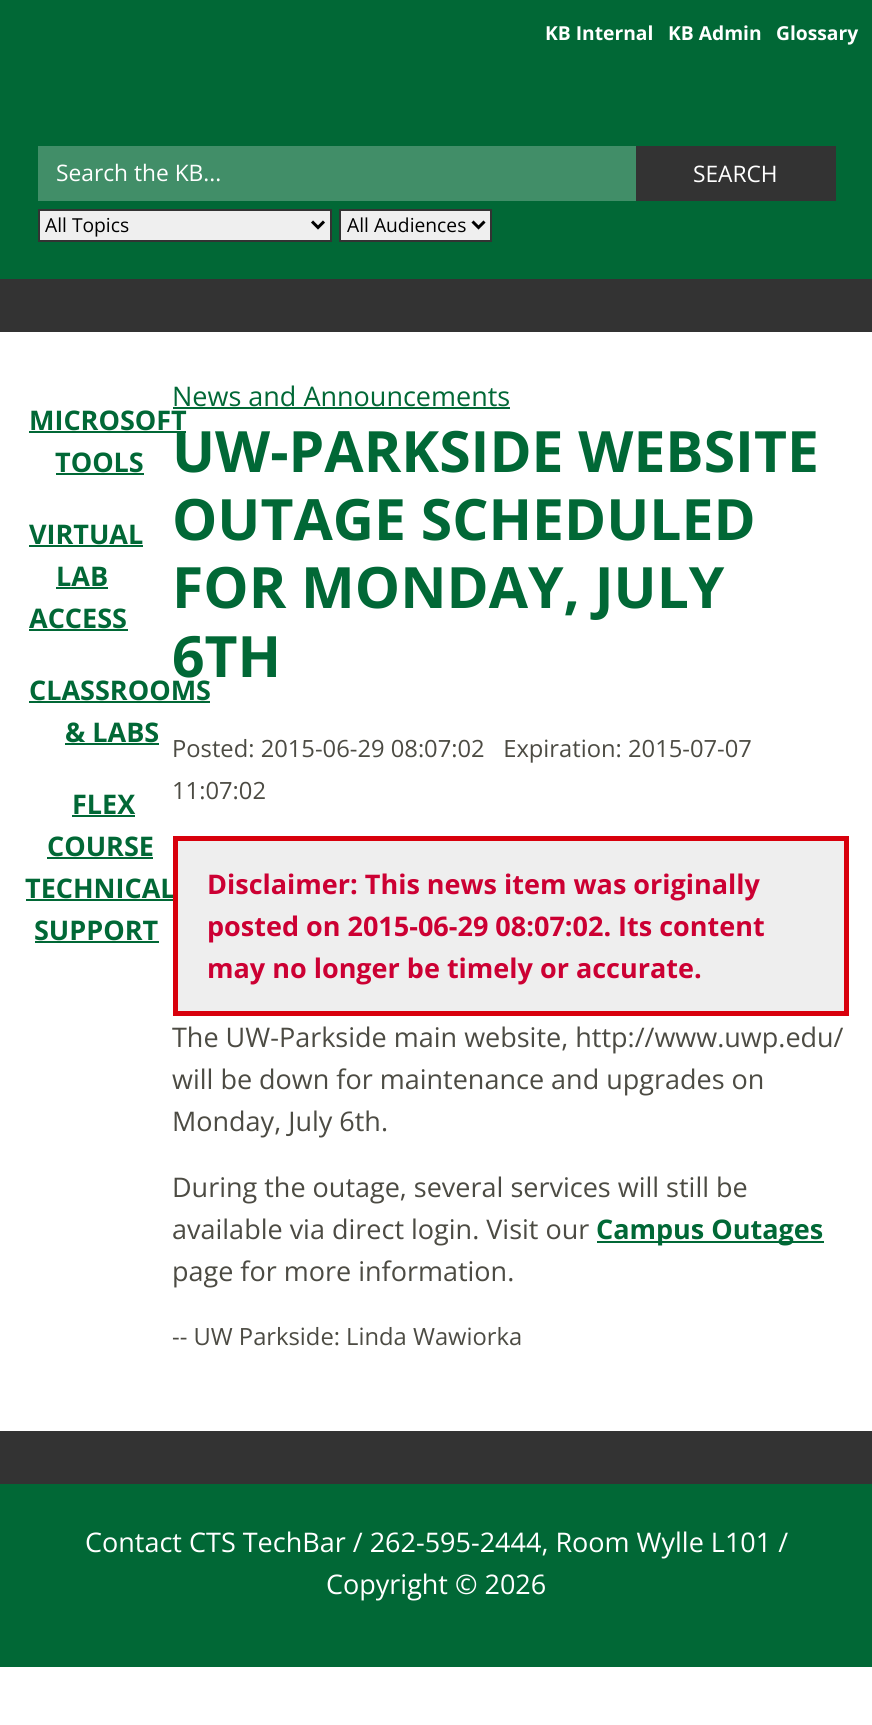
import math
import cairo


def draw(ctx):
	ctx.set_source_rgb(1, 1, 1)
	ctx.paint()
	ctx.set_source_rgb(0.004, 0.408, 0.212)
	ctx.rectangle(0, 0, 872, 279)
	ctx.fill()
	ctx.select_font_face('Open Sans', cairo.FONT_SLANT_NORMAL, cairo.FONT_WEIGHT_BOLD)
	ctx.set_font_size(19.25)
	ctx.set_source_rgb(1, 1, 1)
	for x, y, s in [
		(545, 40, 'KB Internal'),
		(668, 40, 'KB Admin'),
		(776, 40, 'Glossary'),
	]:
		ctx.move_to(x, y)
		ctx.show_text(s)
	ctx.set_source_rgb(0.2, 0.2, 0.2)
	ctx.rectangle(0, 279, 872, 53)
	ctx.fill()
	ctx.set_source_rgb(0.255, 0.557, 0.408)
	ctx.rectangle(38, 146, 598, 55)
	ctx.fill()
	ctx.select_font_face('Open Sans')
	ctx.set_font_size(22.75)
	ctx.set_source_rgb(1, 1, 1)
	ctx.move_to(56, 181)
	ctx.show_text('Search the KB...')
	ctx.set_source_rgb(0.2, 0.2, 0.2)
	ctx.rectangle(636, 146, 200, 55)
	ctx.fill()
	ctx.set_source_rgb(1, 1, 1)
	ctx.move_to(693, 182)
	ctx.show_text('SEARCH')
	ctx.set_source_rgb(0.937, 0.937, 0.937)
	ctx.rectangle(39, 210, 292, 31)
	ctx.fill_preserve()
	ctx.set_source_rgb(0.2, 0.2, 0.2)
	ctx.stroke()
	ctx.new_path()
	ctx.move_to(312, 221.5)
	ctx.line_to(318, 227.5)
	ctx.line_to(324, 221.5)
	ctx.set_source_rgb(0, 0, 0)
	ctx.set_line_width(3)
	ctx.stroke()
	ctx.set_font_size(19.25)
	ctx.move_to(45, 232)
	ctx.show_text('All Topics')
	ctx.set_source_rgb(0.937, 0.937, 0.937)
	ctx.rectangle(340, 210, 151, 31)
	ctx.fill_preserve()
	ctx.set_source_rgb(0.2, 0.2, 0.2)
	ctx.set_line_width(2)
	ctx.stroke()
	ctx.new_path()
	ctx.move_to(472.5, 221.5)
	ctx.line_to(478.5, 227.5)
	ctx.line_to(484.5, 221.5)
	ctx.set_source_rgb(0, 0, 0)
	ctx.set_line_width(3)
	ctx.stroke()
	ctx.move_to(347, 232)
	ctx.show_text('All Audiences')
	ctx.select_font_face('Open Sans', cairo.FONT_SLANT_NORMAL, cairo.FONT_WEIGHT_BOLD)
	ctx.set_font_size(27)
	ctx.set_source_rgb(0.004, 0.408, 0.212)
	ctx.move_to(29, 430)
	ctx.show_text('MICROSOFT')
	ctx.rectangle(29, 431, 157, 2)
	ctx.fill()
	ctx.move_to(55, 472)
	ctx.show_text('TOOLS')
	ctx.rectangle(56, 473, 88, 2)
	ctx.fill()
	ctx.move_to(29, 544)
	ctx.show_text('VIRTUAL')
	ctx.rectangle(29, 545, 114, 2)
	ctx.fill()
	ctx.move_to(56, 586)
	ctx.show_text('LAB')
	ctx.rectangle(56, 587, 52, 2)
	ctx.fill()
	ctx.move_to(29, 628)
	ctx.show_text('ACCESS')
	ctx.rectangle(29, 629, 99, 2)
	ctx.fill()
	ctx.move_to(29, 700)
	ctx.show_text('CLASSROOMS')
	ctx.rectangle(29, 701, 181, 2)
	ctx.fill()
	ctx.move_to(65, 742)
	ctx.show_text('& LABS')
	ctx.rectangle(65, 743, 94, 2)
	ctx.fill()
	ctx.move_to(72, 814)
	ctx.show_text('FLEX')
	ctx.rectangle(72, 815, 63, 2)
	ctx.fill()
	ctx.move_to(47, 856)
	ctx.show_text('COURSE')
	ctx.rectangle(47, 857, 106, 2)
	ctx.fill()
	ctx.move_to(25, 898)
	ctx.show_text('TECHNICAL')
	ctx.rectangle(26, 899, 150, 2)
	ctx.fill()
	ctx.move_to(34, 940)
	ctx.show_text('SUPPORT')
	ctx.rectangle(35, 941, 124, 2)
	ctx.fill()
	ctx.select_font_face('Open Sans')
	ctx.move_to(172, 406)
	ctx.show_text('News and Announcements')
	ctx.rectangle(173, 407, 337, 2)
	ctx.fill()
	ctx.select_font_face('Open Sans', cairo.FONT_SLANT_NORMAL, cairo.FONT_WEIGHT_BOLD)
	ctx.set_font_size(57)
	for x, y, s in [
		(172, 472, 'UW-PARKSIDE WEBSITE'),
		(172, 540, 'OUTAGE SCHEDULED'),
		(172, 608, 'FOR MONDAY, JULY'),
		(172, 677, '6TH'),
	]:
		ctx.move_to(x, y)
		ctx.show_text(s)
	ctx.select_font_face('Open Sans')
	ctx.set_font_size(23.75)
	ctx.set_source_rgb(0.298, 0.294, 0.263)
	ctx.move_to(172, 757)
	ctx.show_text('Posted: 2015-06-29 08:07:02   Expiration: 2015-07-07')
	ctx.move_to(172, 799)
	ctx.show_text('11:07:02')
	ctx.set_source_rgb(0.933, 0.933, 0.933)
	ctx.rectangle(175.5, 838.5, 671, 175)
	ctx.fill_preserve()
	ctx.set_source_rgb(0.847, 0, 0.047)
	ctx.set_line_width(5)
	ctx.stroke()
	ctx.select_font_face('Open Sans', cairo.FONT_SLANT_NORMAL, cairo.FONT_WEIGHT_BOLD)
	ctx.set_font_size(27)
	ctx.set_source_rgb(0.8, 0, 0.2)
	for x, y, s in [
		(207, 894, 'Disclaimer: This news item was originally'),
		(207, 936, 'posted on 2015-06-29 08:07:02. Its content'),
		(207, 978, 'may no longer be timely or accurate.'),
	]:
		ctx.move_to(x, y)
		ctx.show_text(s)
	ctx.select_font_face('Open Sans')
	ctx.set_source_rgb(0.298, 0.294, 0.263)
	for x, y, s in [
		(172, 1047, 'The UW-Parkside main website, http://www.uwp.edu/'),
		(172, 1089, 'will be down for maintenance and upgrades on'),
		(172, 1131, 'Monday, July 6th.'),
		(172, 1197, 'During the outage, several services will still be'),
		(172, 1239, 'available via direct login. Visit our'),
	]:
		ctx.move_to(x, y)
		ctx.show_text(s)
	ctx.set_source_rgb(0.004, 0.408, 0.212)
	ctx.rectangle(597, 1241, 227, 2)
	ctx.fill()
	ctx.select_font_face('Open Sans', cairo.FONT_SLANT_NORMAL, cairo.FONT_WEIGHT_BOLD)
	ctx.move_to(596, 1239)
	ctx.show_text('Campus Outages')
	ctx.select_font_face('Open Sans')
	ctx.set_source_rgb(0.298, 0.294, 0.263)
	ctx.move_to(172, 1281)
	ctx.show_text('page for more information.')
	ctx.set_font_size(23.75)
	ctx.move_to(172, 1345)
	ctx.show_text('-- UW Parkside: Linda Wawiorka')
	ctx.set_source_rgb(0.004, 0.408, 0.212)
	ctx.rectangle(0, 1484, 872, 183)
	ctx.fill()
	ctx.set_source_rgb(0.2, 0.2, 0.2)
	ctx.rectangle(0, 1431, 872, 53)
	ctx.fill()
	ctx.set_font_size(27)
	ctx.set_source_rgb(1, 1, 1)
	ctx.move_to(85, 1552)
	ctx.show_text('Contact CTS TechBar / 262-595-2444, Room Wylle L101 /')
	ctx.move_to(326, 1594)
	ctx.show_text('Copyright © 2026')


surface = cairo.ImageSurface(cairo.FORMAT_RGB24, 872, 1725)
ctx = cairo.Context(surface)
options = cairo.FontOptions()
options.set_hint_metrics(cairo.HINT_METRICS_OFF)
options.set_hint_style(cairo.HINT_STYLE_NONE)
ctx.set_font_options(options)
ctx.set_miter_limit(4)
draw(ctx)
surface.write_to_png('image.png')
